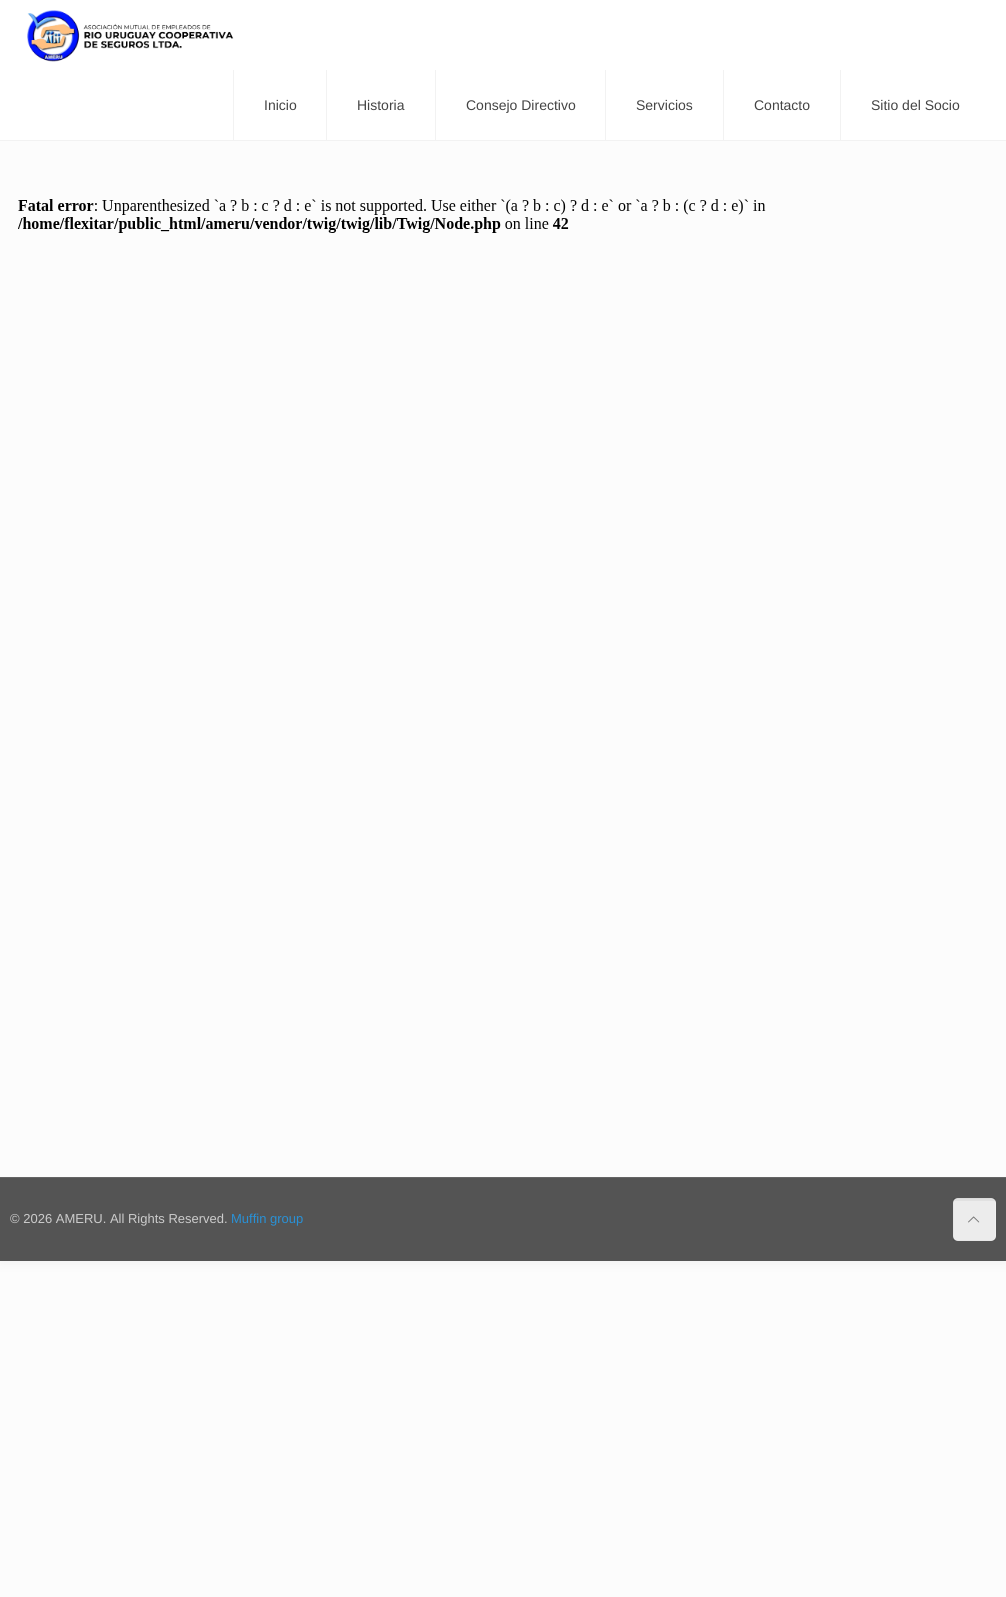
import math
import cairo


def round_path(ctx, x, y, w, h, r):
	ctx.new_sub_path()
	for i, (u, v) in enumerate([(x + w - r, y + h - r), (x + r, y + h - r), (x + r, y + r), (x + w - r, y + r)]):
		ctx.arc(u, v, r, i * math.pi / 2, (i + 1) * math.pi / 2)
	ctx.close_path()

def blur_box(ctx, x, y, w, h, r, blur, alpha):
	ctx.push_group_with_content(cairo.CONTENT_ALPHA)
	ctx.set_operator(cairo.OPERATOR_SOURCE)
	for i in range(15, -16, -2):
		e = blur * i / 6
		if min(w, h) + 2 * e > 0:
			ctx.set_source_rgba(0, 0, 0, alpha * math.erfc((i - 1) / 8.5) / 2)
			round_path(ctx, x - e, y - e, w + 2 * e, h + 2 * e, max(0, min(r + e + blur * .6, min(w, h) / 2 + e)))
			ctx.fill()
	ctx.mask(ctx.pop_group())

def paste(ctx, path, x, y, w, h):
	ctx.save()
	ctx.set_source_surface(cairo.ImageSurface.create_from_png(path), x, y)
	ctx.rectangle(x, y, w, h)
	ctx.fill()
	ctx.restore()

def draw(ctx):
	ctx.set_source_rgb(0.988, 0.988, 0.988)
	ctx.paint()
	ctx.set_source_rgb(0, 0, 0)
	blur_box(ctx, 0, 0, 1006, 1261, 0, 7.5, 0.06)
	ctx.set_source_rgb(0.988, 0.988, 0.988)
	ctx.rectangle(0, 141, 1006, 1036)
	ctx.fill()
	ctx.set_source_rgb(1, 1, 1)
	ctx.rectangle(0, 0, 1006, 140)
	ctx.fill()
	ctx.set_source_rgb(0.949, 0.949, 0.949)
	ctx.rectangle(0, 140, 1006, 1)
	ctx.fill()
	paste(ctx, 'media/1.png', 27, 10, 207, 52)
	ctx.rectangle(326, 70, 1, 70)
	ctx.fill()
	ctx.rectangle(233, 70, 1, 70)
	ctx.fill()
	ctx.select_font_face('Liberation Sans')
	ctx.set_font_size(14)
	ctx.set_source_rgb(0.267, 0.267, 0.267)
	ctx.move_to(264, 110)
	ctx.show_text('Inicio')
	ctx.set_source_rgb(0.949, 0.949, 0.949)
	ctx.rectangle(435, 70, 1, 70)
	ctx.fill()
	ctx.set_source_rgb(0.267, 0.267, 0.267)
	ctx.move_to(357, 110)
	ctx.show_text('Historia')
	ctx.set_source_rgb(0.949, 0.949, 0.949)
	ctx.rectangle(605, 70, 1, 70)
	ctx.fill()
	ctx.set_source_rgb(0.267, 0.267, 0.267)
	ctx.move_to(466, 110)
	ctx.show_text('Consejo Directivo')
	ctx.set_source_rgb(0.949, 0.949, 0.949)
	ctx.rectangle(723, 70, 1, 70)
	ctx.fill()
	ctx.set_source_rgb(0.267, 0.267, 0.267)
	ctx.move_to(636, 110)
	ctx.show_text('Servicios')
	ctx.set_source_rgb(0.949, 0.949, 0.949)
	ctx.rectangle(840, 70, 1, 70)
	ctx.fill()
	ctx.set_source_rgb(0.267, 0.267, 0.267)
	ctx.move_to(754, 110)
	ctx.show_text('Contacto')
	ctx.move_to(871, 110)
	ctx.show_text('Sitio del Socio')
	paste(ctx, 'media/2.png', 18, 199, 748, 34)
	ctx.set_source_rgb(0.329, 0.329, 0.329)
	ctx.rectangle(0, 1178, 1006, 83)
	ctx.fill()
	ctx.set_source_rgb(0.396, 0.396, 0.396)
	ctx.rectangle(0, 1177, 1006, 1)
	ctx.fill()
	ctx.set_font_size(13)
	ctx.set_source_rgb(0.8, 0.8, 0.8)
	ctx.move_to(10, 1223)
	ctx.show_text('© 2026 AMERU. All Rights Reserved.')
	ctx.set_source_rgb(0.161, 0.569, 0.839)
	ctx.move_to(231, 1223)
	ctx.show_text('Muffin group')
	ctx.set_source_rgb(0.969, 0.969, 0.969)
	round_path(ctx, 953, 1198, 43, 43, 5)
	ctx.fill()
	ctx.set_source_rgba(0, 0, 0, 0.05)
	ctx.rectangle(954, 1198, 41, 3)
	ctx.fill()
	ctx.rectangle(953.5, 1198.5, 42, 42)
	ctx.set_source_rgba(0, 0, 0, 0.03)
	ctx.set_line_width(1)
	ctx.stroke()
	ctx.set_source_rgba(0, 0, 0, 0.05)
	ctx.rectangle(953, 1198, 42, 43)
	ctx.fill()
	paste(ctx, 'media/3.png', 968, 1216, 12, 7)


surface = cairo.ImageSurface(cairo.FORMAT_RGB24, 1006, 1597)
ctx = cairo.Context(surface)
options = cairo.FontOptions()
options.set_hint_metrics(cairo.HINT_METRICS_OFF)
options.set_hint_style(cairo.HINT_STYLE_NONE)
ctx.set_font_options(options)
ctx.set_miter_limit(4)
draw(ctx)
surface.write_to_png('image.png')
